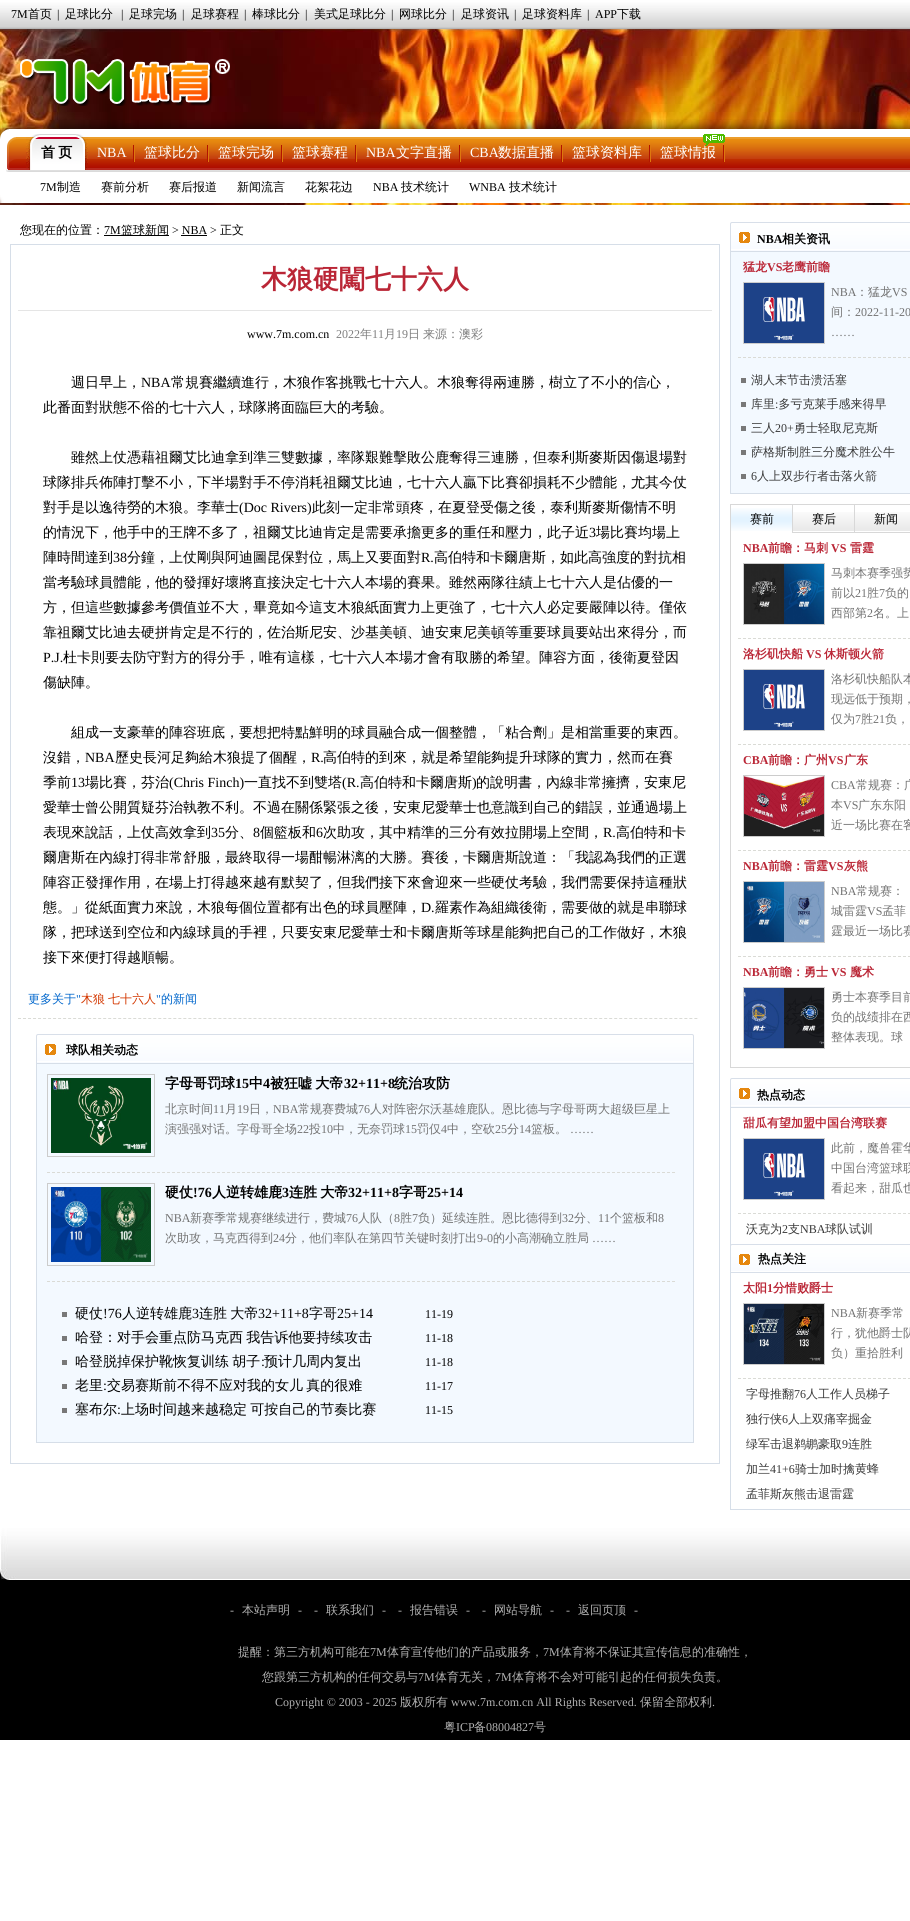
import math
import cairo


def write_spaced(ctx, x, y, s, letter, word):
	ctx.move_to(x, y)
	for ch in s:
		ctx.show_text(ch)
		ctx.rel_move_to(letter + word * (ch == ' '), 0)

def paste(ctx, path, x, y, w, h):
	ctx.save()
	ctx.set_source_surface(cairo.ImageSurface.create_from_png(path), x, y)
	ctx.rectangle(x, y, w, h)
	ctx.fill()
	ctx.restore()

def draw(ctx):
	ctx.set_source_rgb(1, 1, 1)
	ctx.paint()
	ctx.set_source_rgb(0, 0, 0)
	ctx.rectangle(0, 1580, 910, 160)
	ctx.fill()
	paste(ctx, 'media/1.png', 0, 0, 910, 205)
	paste(ctx, 'media/2.png', 0, 15, 910, 14)
	ctx.select_font_face('Liberation Serif')
	ctx.set_font_size(12)
	ctx.move_to(11, 18)
	ctx.show_text('7M')
	ctx.select_font_face('WenQuanYi Zen Hei Medium')
	ctx.move_to(28, 18)
	ctx.show_text('首页')
	ctx.select_font_face('Liberation Serif')
	ctx.move_to(57, 18)
	ctx.show_text('|')
	ctx.select_font_face('WenQuanYi Zen Hei Medium')
	ctx.move_to(65, 18)
	ctx.show_text('足球比分')
	ctx.select_font_face('Liberation Serif')
	ctx.move_to(121, 18)
	ctx.show_text('|')
	ctx.select_font_face('WenQuanYi Zen Hei Medium')
	ctx.move_to(129, 18)
	ctx.show_text('足球完场')
	ctx.select_font_face('Liberation Serif')
	ctx.move_to(182, 18)
	ctx.show_text('|')
	ctx.select_font_face('WenQuanYi Zen Hei Medium')
	ctx.move_to(191, 18)
	ctx.show_text('足球赛程')
	ctx.select_font_face('Liberation Serif')
	ctx.move_to(244, 18)
	ctx.show_text('|')
	ctx.select_font_face('WenQuanYi Zen Hei Medium')
	ctx.move_to(252, 18)
	ctx.show_text('棒球比分')
	ctx.select_font_face('Liberation Serif')
	ctx.move_to(305, 18)
	ctx.show_text('|')
	ctx.select_font_face('WenQuanYi Zen Hei Medium')
	ctx.move_to(314, 18)
	ctx.show_text('美式足球比分')
	ctx.select_font_face('Liberation Serif')
	ctx.move_to(391, 18)
	ctx.show_text('|')
	ctx.select_font_face('WenQuanYi Zen Hei Medium')
	ctx.move_to(399, 18)
	ctx.show_text('网球比分')
	ctx.select_font_face('Liberation Serif')
	ctx.move_to(452, 18)
	ctx.show_text('|')
	ctx.select_font_face('WenQuanYi Zen Hei Medium')
	ctx.move_to(461, 18)
	ctx.show_text('足球资讯')
	ctx.select_font_face('Liberation Serif')
	ctx.move_to(514, 18)
	ctx.show_text('|')
	ctx.select_font_face('WenQuanYi Zen Hei Medium')
	ctx.move_to(522, 18)
	ctx.show_text('足球资料库')
	ctx.select_font_face('Liberation Serif')
	ctx.move_to(587, 18)
	ctx.show_text('|')
	ctx.move_to(595, 18)
	ctx.show_text('APP')
	ctx.select_font_face('WenQuanYi Zen Hei Medium')
	ctx.move_to(617, 18)
	ctx.show_text('下载')
	paste(ctx, 'media/3.png', 20, 59, 210, 47)
	paste(ctx, 'media/4.png', 0, 119, 910, 84)
	paste(ctx, 'media/5.png', 6, 137, 904, 35)
	paste(ctx, 'media/6.png', 26, 134, 16, 36)
	paste(ctx, 'media/7.png', 42, 134, 46, 36)
	ctx.select_font_face('WenQuanYi Zen Hei', cairo.FONT_SLANT_NORMAL, cairo.FONT_WEIGHT_BOLD)
	ctx.set_font_size(14)
	write_spaced(ctx, 41, 157, '首 页', 0, -1)
	paste(ctx, 'media/8.png', 133, 145, 2, 17)
	ctx.select_font_face('Liberation Serif')
	ctx.set_source_rgb(1, 1, 1)
	ctx.move_to(97, 157)
	ctx.show_text('NBA')
	paste(ctx, 'media/8.png', 207, 145, 2, 17)
	ctx.select_font_face('WenQuanYi Zen Hei Medium')
	ctx.move_to(144, 157)
	ctx.show_text('篮球比分')
	paste(ctx, 'media/8.png', 281, 145, 2, 17)
	ctx.move_to(218, 157)
	ctx.show_text('篮球完场')
	paste(ctx, 'media/8.png', 355, 145, 2, 17)
	ctx.move_to(292, 157)
	ctx.show_text('篮球赛程')
	paste(ctx, 'media/8.png', 459, 145, 2, 17)
	ctx.select_font_face('Liberation Serif')
	ctx.move_to(366, 157)
	ctx.show_text('NBA')
	ctx.select_font_face('WenQuanYi Zen Hei Medium')
	ctx.move_to(396, 157)
	ctx.show_text('文字直播')
	paste(ctx, 'media/8.png', 561, 145, 2, 17)
	ctx.select_font_face('Liberation Serif')
	ctx.move_to(470, 157)
	ctx.show_text('CBA')
	ctx.select_font_face('WenQuanYi Zen Hei Medium')
	ctx.move_to(498, 157)
	ctx.show_text('数据直播')
	paste(ctx, 'media/8.png', 649, 145, 2, 17)
	ctx.move_to(572, 157)
	ctx.show_text('篮球资料库')
	paste(ctx, 'media/8.png', 723, 145, 2, 17)
	ctx.move_to(660, 157)
	ctx.show_text('篮球情报')
	paste(ctx, 'media/9.png', 703, 134, 22, 12)
	ctx.select_font_face('Liberation Serif')
	ctx.set_font_size(12)
	ctx.set_source_rgb(0, 0, 0)
	ctx.move_to(40, 191)
	ctx.show_text('7M')
	ctx.select_font_face('WenQuanYi Zen Hei Medium')
	for x, y, s in [
		(57, 191, '制造'),
		(101, 191, '赛前分析'),
		(169, 191, '赛后报道'),
		(237, 191, '新闻流言'),
		(305, 191, '花絮花边'),
	]:
		ctx.move_to(x, y)
		ctx.show_text(s)
	ctx.select_font_face('Liberation Serif')
	ctx.move_to(373, 191)
	ctx.show_text('NBA')
	ctx.select_font_face('WenQuanYi Zen Hei Medium')
	ctx.move_to(401, 191)
	ctx.show_text('技术统计')
	ctx.select_font_face('Liberation Serif')
	ctx.move_to(469, 191)
	ctx.show_text('WNBA')
	ctx.select_font_face('WenQuanYi Zen Hei Medium')
	ctx.move_to(509, 191)
	ctx.show_text('技术统计')
	ctx.move_to(20, 234)
	ctx.show_text('您现在的位置：')
	ctx.select_font_face('Liberation Serif')
	ctx.move_to(104, 234)
	ctx.show_text('7M')
	ctx.rectangle(104, 235, 65, 1)
	ctx.fill()
	ctx.select_font_face('WenQuanYi Zen Hei Medium')
	ctx.move_to(121, 234)
	ctx.show_text('篮球新闻')
	ctx.select_font_face('Liberation Serif')
	ctx.move_to(172, 234)
	ctx.show_text('> NBA >')
	ctx.rectangle(181, 235, 26, 1)
	ctx.fill()
	ctx.select_font_face('WenQuanYi Zen Hei Medium')
	ctx.move_to(220, 234)
	ctx.show_text('正文')
	ctx.rectangle(10.5, 244.5, 709, 1219)
	ctx.set_source_rgb(0.839, 0.871, 0.91)
	ctx.set_line_width(1)
	ctx.stroke()
	ctx.select_font_face('WenQuanYi Zen Hei', cairo.FONT_SLANT_NORMAL, cairo.FONT_WEIGHT_BOLD)
	ctx.set_font_size(26)
	ctx.set_source_rgb(0.729, 0.149, 0.212)
	ctx.move_to(261, 288)
	ctx.show_text('木狼硬闖七十六人')
	ctx.set_source_rgb(0.898, 0.898, 0.898)
	ctx.rectangle(18, 310, 694, 1)
	ctx.fill()
	ctx.select_font_face('Liberation Serif')
	ctx.set_font_size(12)
	ctx.set_source_rgb(0, 0, 0)
	ctx.move_to(247, 338)
	ctx.show_text('www.7m.com.cn')
	ctx.set_source_rgb(0.494, 0.494, 0.494)
	ctx.move_to(336, 338)
	ctx.show_text('2022')
	ctx.select_font_face('WenQuanYi Zen Hei Medium')
	ctx.move_to(360, 338)
	ctx.show_text('年')
	ctx.select_font_face('Liberation Serif')
	ctx.move_to(372, 338)
	ctx.show_text('11')
	ctx.select_font_face('WenQuanYi Zen Hei Medium')
	ctx.move_to(384, 338)
	ctx.show_text('月')
	ctx.select_font_face('Liberation Serif')
	ctx.move_to(396, 338)
	ctx.show_text('19')
	ctx.select_font_face('WenQuanYi Zen Hei Medium')
	ctx.move_to(408, 338)
	ctx.show_text('日')
	ctx.move_to(423, 338)
	ctx.show_text('来源：澳彩')
	ctx.set_font_size(14)
	ctx.set_source_rgb(0, 0, 0)
	ctx.move_to(71, 387)
	ctx.show_text('週日早上，')
	ctx.select_font_face('Liberation Serif')
	ctx.move_to(141, 387)
	ctx.show_text('NBA')
	ctx.select_font_face('WenQuanYi Zen Hei Medium')
	for x, y, s in [
		(171, 387, '常規賽繼續進行，木狼作客挑戰七十六人。木狼奪得兩連勝，樹立了不小的信心，'),
		(43, 412, '此番面對狀態不俗的七十六人，球隊將面臨巨大的考驗。'),
		(71, 462, '雖然上仗憑藉祖爾艾比迪拿到準三雙數據，率隊艱難擊敗公鹿奪得三連勝，但泰利斯麥斯因傷退場對'),
		(43, 487, '球隊排兵佈陣打擊不小，下半場對手不停消耗祖爾艾比迪，七十六人贏下比賽卻損耗不少體能，尤其今仗'),
		(43, 512, '對手是以逸待勞的木狼。李華士'),
	]:
		ctx.move_to(x, y)
		ctx.show_text(s)
	ctx.select_font_face('Liberation Serif')
	ctx.move_to(239, 512)
	ctx.show_text('(Doc Rivers)')
	ctx.select_font_face('WenQuanYi Zen Hei Medium')
	ctx.move_to(312, 512)
	ctx.show_text('此刻一定非常頭疼，在夏登受傷之後，泰利斯麥斯傷情不明')
	ctx.move_to(43, 537)
	ctx.show_text('的情況下，他手中的王牌不多了，祖爾艾比迪肯定是需要承擔更多的重任和壓力，此子近')
	ctx.select_font_face('Liberation Serif')
	ctx.move_to(589, 537)
	ctx.show_text('3')
	ctx.select_font_face('WenQuanYi Zen Hei Medium')
	ctx.move_to(596, 537)
	ctx.show_text('場比賽均場上')
	ctx.move_to(43, 562)
	ctx.show_text('陣時間達到')
	ctx.select_font_face('Liberation Serif')
	ctx.move_to(113, 562)
	ctx.show_text('38')
	ctx.select_font_face('WenQuanYi Zen Hei Medium')
	ctx.move_to(127, 562)
	ctx.show_text('分鐘，上仗剛與阿迪圖昆保對位，馬上又要面對')
	ctx.select_font_face('Liberation Serif')
	ctx.move_to(421, 562)
	ctx.show_text('R.')
	ctx.select_font_face('WenQuanYi Zen Hei Medium')
	for x, y, s in [
		(434, 562, '高伯特和卡爾唐斯，如此高強度的對抗相'),
		(43, 587, '當考驗球員體能，他的發揮好壞將直接決定七十六人本場的賽果。雖然兩隊往績上七十六人是佔優的一'),
		(43, 612, '方，但這些數據參考價值並不大，畢竟如今這支木狼紙面實力上更強了，七十六人必定要嚴陣以待。僅依'),
		(43, 637, '靠祖爾艾比迪去硬拼肯定是不行的，佐治斯尼安、沙基美頓、迪安東尼美頓等重要球員要站出來得分，而'),
	]:
		ctx.move_to(x, y)
		ctx.show_text(s)
	ctx.select_font_face('Liberation Serif')
	ctx.move_to(43, 662)
	ctx.show_text('P.J.')
	ctx.select_font_face('WenQuanYi Zen Hei Medium')
	for x, y, s in [
		(63, 662, '杜卡則要去防守對方的得分手，唯有這樣，七十六人本場才會有取勝的希望。陣容方面，後衛夏登因'),
		(43, 687, '傷缺陣。'),
		(71, 737, '組成一支豪華的陣容班底，要想把特點鮮明的球員融合成一個整體，「粘合劑」是相當重要的東西。'),
		(43, 762, '沒錯，'),
	]:
		ctx.move_to(x, y)
		ctx.show_text(s)
	ctx.select_font_face('Liberation Serif')
	ctx.move_to(85, 762)
	ctx.show_text('NBA')
	ctx.select_font_face('WenQuanYi Zen Hei Medium')
	ctx.move_to(115, 762)
	ctx.show_text('歷史長河足夠給木狼提了個醒，')
	ctx.select_font_face('Liberation Serif')
	ctx.move_to(311, 762)
	ctx.show_text('R.')
	ctx.select_font_face('WenQuanYi Zen Hei Medium')
	ctx.move_to(323, 762)
	ctx.show_text('高伯特的到來，就是希望能夠提升球隊的實力，然而在賽')
	ctx.move_to(43, 787)
	ctx.show_text('季前')
	ctx.select_font_face('Liberation Serif')
	ctx.move_to(71, 787)
	ctx.show_text('13')
	ctx.select_font_face('WenQuanYi Zen Hei Medium')
	ctx.move_to(85, 787)
	ctx.show_text('場比賽，芬治')
	ctx.select_font_face('Liberation Serif')
	ctx.move_to(169, 787)
	ctx.show_text('(Chris Finch)')
	ctx.select_font_face('WenQuanYi Zen Hei Medium')
	ctx.move_to(244, 787)
	ctx.show_text('一直找不到雙塔')
	ctx.select_font_face('Liberation Serif')
	ctx.move_to(342, 787)
	ctx.show_text('(R.')
	ctx.select_font_face('WenQuanYi Zen Hei Medium')
	ctx.move_to(360, 787)
	ctx.show_text('高伯特和卡爾唐斯')
	ctx.select_font_face('Liberation Serif')
	ctx.move_to(472, 787)
	ctx.show_text(')')
	ctx.select_font_face('WenQuanYi Zen Hei Medium')
	for x, y, s in [
		(476, 787, '的說明書，內線非常擁擠，安東尼'),
		(43, 812, '愛華士曾公開質疑芬治執教不利。不過在關係緊張之後，安東尼愛華士也意識到自己的錯誤，並通過場上'),
		(43, 837, '表現來說話，上仗高效拿到'),
	]:
		ctx.move_to(x, y)
		ctx.show_text(s)
	ctx.select_font_face('Liberation Serif')
	ctx.move_to(211, 837)
	ctx.show_text('35')
	ctx.select_font_face('WenQuanYi Zen Hei Medium')
	ctx.move_to(225, 837)
	ctx.show_text('分、')
	ctx.select_font_face('Liberation Serif')
	ctx.move_to(253, 837)
	ctx.show_text('8')
	ctx.select_font_face('WenQuanYi Zen Hei Medium')
	ctx.move_to(260, 837)
	ctx.show_text('個籃板和')
	ctx.select_font_face('Liberation Serif')
	ctx.move_to(316, 837)
	ctx.show_text('6')
	ctx.select_font_face('WenQuanYi Zen Hei Medium')
	ctx.move_to(323, 837)
	ctx.show_text('次助攻，其中精準的三分有效拉開場上空間，')
	ctx.select_font_face('Liberation Serif')
	ctx.move_to(603, 837)
	ctx.show_text('R.')
	ctx.select_font_face('WenQuanYi Zen Hei Medium')
	for x, y, s in [
		(616, 837, '高伯特和卡'),
		(43, 862, '爾唐斯在內線打得非常舒服，最終取得一場酣暢淋漓的大勝。賽後，卡爾唐斯說道：「我認為我們的正選'),
		(43, 887, '陣容正發揮作用，在場上打得越來越有默契了，但我們接下來會迎來一些硬仗考驗，我們需要保持這種狀'),
		(43, 912, '態。」從紙面實力來說，木狼每個位置都有出色的球員壓陣，'),
	]:
		ctx.move_to(x, y)
		ctx.show_text(s)
	ctx.select_font_face('Liberation Serif')
	ctx.move_to(421, 912)
	ctx.show_text('D.')
	ctx.select_font_face('WenQuanYi Zen Hei Medium')
	for x, y, s in [
		(435, 912, '羅素作為組織後衛，需要做的就是串聯球'),
		(43, 937, '隊，把球送到空位和內線球員的手裡，只要安東尼愛華士和卡爾唐斯等球星能夠把自己的工作做好，木狼'),
		(43, 962, '接下來便打得越順暢。'),
	]:
		ctx.move_to(x, y)
		ctx.show_text(s)
	ctx.new_path()
	ctx.move_to(18, 1018.5)
	ctx.line_to(698, 1018.5)
	ctx.set_source_rgb(0.855, 0.859, 0.839)
	ctx.set_dash([3, 2.01])
	ctx.stroke()
	ctx.set_font_size(12)
	ctx.set_source_rgb(0, 0.4, 0.8)
	ctx.move_to(28, 1003)
	ctx.show_text('更多关于')
	ctx.select_font_face('Liberation Serif')
	ctx.move_to(76, 1003)
	ctx.show_text('"')
	ctx.select_font_face('WenQuanYi Zen Hei Medium')
	ctx.set_source_rgb(0.827, 0.216, 0)
	ctx.move_to(81, 1003)
	ctx.show_text('木狼')
	ctx.move_to(108, 1003)
	ctx.show_text('七十六人')
	ctx.select_font_face('Liberation Serif')
	ctx.set_source_rgb(0, 0.4, 0.8)
	ctx.move_to(156, 1003)
	ctx.show_text('"')
	ctx.select_font_face('WenQuanYi Zen Hei Medium')
	ctx.move_to(161, 1003)
	ctx.show_text('的新闻')
	paste(ctx, 'media/10.png', 36, 1034, 658, 29)
	ctx.select_font_face('WenQuanYi Zen Hei', cairo.FONT_SLANT_NORMAL, cairo.FONT_WEIGHT_BOLD)
	ctx.set_source_rgb(0, 0, 0)
	ctx.move_to(66, 1054)
	ctx.show_text('球队相关动态')
	ctx.set_source_rgb(0.953, 0.973, 1)
	ctx.rectangle(36.5, 1063.5, 657, 379)
	ctx.fill_preserve()
	ctx.set_source_rgb(0.839, 0.871, 0.91)
	ctx.set_dash([])
	ctx.stroke()
	ctx.new_path()
	ctx.move_to(47, 1172.5)
	ctx.line_to(675, 1172.5)
	ctx.set_source_rgb(0.855, 0.859, 0.839)
	ctx.set_dash([3, 2])
	ctx.stroke()
	ctx.rectangle(47.5, 1074.5, 107, 82)
	ctx.set_source_rgb(0.8, 0.8, 0.8)
	ctx.set_dash([])
	ctx.stroke()
	paste(ctx, 'media/11.png', 51, 1078, 100, 75)
	ctx.set_font_size(14)
	ctx.set_source_rgb(0, 0, 0)
	ctx.move_to(165, 1088)
	ctx.show_text('字母哥罚球')
	ctx.select_font_face('Liberation Serif', cairo.FONT_SLANT_NORMAL, cairo.FONT_WEIGHT_BOLD)
	ctx.move_to(235, 1088)
	ctx.show_text('15')
	ctx.select_font_face('WenQuanYi Zen Hei', cairo.FONT_SLANT_NORMAL, cairo.FONT_WEIGHT_BOLD)
	ctx.move_to(249, 1088)
	ctx.show_text('中')
	ctx.select_font_face('Liberation Serif', cairo.FONT_SLANT_NORMAL, cairo.FONT_WEIGHT_BOLD)
	ctx.move_to(263, 1088)
	ctx.show_text('4')
	ctx.select_font_face('WenQuanYi Zen Hei', cairo.FONT_SLANT_NORMAL, cairo.FONT_WEIGHT_BOLD)
	write_spaced(ctx, 270, 1088, '被狂嘘 大帝', 0, -1)
	ctx.select_font_face('Liberation Serif', cairo.FONT_SLANT_NORMAL, cairo.FONT_WEIGHT_BOLD)
	ctx.move_to(344, 1088)
	ctx.show_text('32+11+8')
	ctx.select_font_face('WenQuanYi Zen Hei', cairo.FONT_SLANT_NORMAL, cairo.FONT_WEIGHT_BOLD)
	ctx.move_to(394, 1088)
	ctx.show_text('统治攻防')
	ctx.select_font_face('WenQuanYi Zen Hei Medium')
	ctx.set_font_size(12)
	ctx.set_source_rgb(0.447, 0.447, 0.447)
	ctx.move_to(165, 1113)
	ctx.show_text('北京时间')
	ctx.select_font_face('Liberation Serif')
	ctx.move_to(213, 1113)
	ctx.show_text('11')
	ctx.select_font_face('WenQuanYi Zen Hei Medium')
	ctx.move_to(225, 1113)
	ctx.show_text('月')
	ctx.select_font_face('Liberation Serif')
	ctx.move_to(237, 1113)
	ctx.show_text('19')
	ctx.select_font_face('WenQuanYi Zen Hei Medium')
	ctx.move_to(249, 1113)
	ctx.show_text('日，')
	ctx.select_font_face('Liberation Serif')
	ctx.move_to(273, 1113)
	ctx.show_text('NBA')
	ctx.select_font_face('WenQuanYi Zen Hei Medium')
	ctx.move_to(298, 1113)
	ctx.show_text('常规赛费城')
	ctx.select_font_face('Liberation Serif')
	ctx.move_to(358, 1113)
	ctx.show_text('76')
	ctx.select_font_face('WenQuanYi Zen Hei Medium')
	ctx.move_to(370, 1113)
	ctx.show_text('人对阵密尔沃基雄鹿队。恩比德与字母哥两大超级巨星上')
	ctx.move_to(165, 1133)
	ctx.show_text('演强强对话。字母哥全场')
	ctx.select_font_face('Liberation Serif')
	ctx.move_to(297, 1133)
	ctx.show_text('22')
	ctx.select_font_face('WenQuanYi Zen Hei Medium')
	ctx.move_to(309, 1133)
	ctx.show_text('投')
	ctx.select_font_face('Liberation Serif')
	ctx.move_to(321, 1133)
	ctx.show_text('10')
	ctx.select_font_face('WenQuanYi Zen Hei Medium')
	ctx.move_to(333, 1133)
	ctx.show_text('中，无奈罚球')
	ctx.select_font_face('Liberation Serif')
	ctx.move_to(405, 1133)
	ctx.show_text('15')
	ctx.select_font_face('WenQuanYi Zen Hei Medium')
	ctx.move_to(417, 1133)
	ctx.show_text('罚仅')
	ctx.select_font_face('Liberation Serif')
	ctx.move_to(441, 1133)
	ctx.show_text('4')
	ctx.select_font_face('WenQuanYi Zen Hei Medium')
	ctx.move_to(447, 1133)
	ctx.show_text('中，空砍')
	ctx.select_font_face('Liberation Serif')
	ctx.move_to(495, 1133)
	ctx.show_text('25')
	ctx.select_font_face('WenQuanYi Zen Hei Medium')
	ctx.move_to(507, 1133)
	ctx.show_text('分')
	ctx.select_font_face('Liberation Serif')
	ctx.move_to(519, 1133)
	ctx.show_text('14')
	ctx.select_font_face('WenQuanYi Zen Hei Medium')
	ctx.move_to(531, 1133)
	ctx.show_text('篮板。')
	ctx.select_font_face('Liberation Serif')
	ctx.move_to(570, 1133)
	ctx.show_text('……')
	ctx.new_path()
	ctx.move_to(47, 1281.5)
	ctx.line_to(675, 1281.5)
	ctx.set_source_rgb(0.855, 0.859, 0.839)
	ctx.set_dash([3, 2])
	ctx.stroke()
	ctx.rectangle(47.5, 1183.5, 107, 82)
	ctx.set_source_rgb(0.8, 0.8, 0.8)
	ctx.set_dash([])
	ctx.stroke()
	paste(ctx, 'media/12.png', 51, 1187, 100, 75)
	ctx.select_font_face('WenQuanYi Zen Hei', cairo.FONT_SLANT_NORMAL, cairo.FONT_WEIGHT_BOLD)
	ctx.set_font_size(14)
	ctx.set_source_rgb(0, 0, 0)
	ctx.move_to(165, 1197)
	ctx.show_text('硬仗')
	ctx.select_font_face('Liberation Serif', cairo.FONT_SLANT_NORMAL, cairo.FONT_WEIGHT_BOLD)
	ctx.move_to(193, 1197)
	ctx.show_text('!76')
	ctx.select_font_face('WenQuanYi Zen Hei', cairo.FONT_SLANT_NORMAL, cairo.FONT_WEIGHT_BOLD)
	ctx.move_to(212, 1197)
	ctx.show_text('人逆转雄鹿')
	ctx.select_font_face('Liberation Serif', cairo.FONT_SLANT_NORMAL, cairo.FONT_WEIGHT_BOLD)
	ctx.move_to(282, 1197)
	ctx.show_text('3')
	ctx.select_font_face('WenQuanYi Zen Hei', cairo.FONT_SLANT_NORMAL, cairo.FONT_WEIGHT_BOLD)
	write_spaced(ctx, 289, 1197, '连胜 大帝', 0, -1)
	ctx.select_font_face('Liberation Serif', cairo.FONT_SLANT_NORMAL, cairo.FONT_WEIGHT_BOLD)
	ctx.move_to(348, 1197)
	ctx.show_text('32+11+8')
	ctx.select_font_face('WenQuanYi Zen Hei', cairo.FONT_SLANT_NORMAL, cairo.FONT_WEIGHT_BOLD)
	ctx.move_to(399, 1197)
	ctx.show_text('字哥')
	ctx.select_font_face('Liberation Serif', cairo.FONT_SLANT_NORMAL, cairo.FONT_WEIGHT_BOLD)
	ctx.move_to(427, 1197)
	ctx.show_text('25+14')
	ctx.select_font_face('Liberation Serif')
	ctx.set_font_size(12)
	ctx.set_source_rgb(0.447, 0.447, 0.447)
	ctx.move_to(165, 1222)
	ctx.show_text('NBA')
	ctx.select_font_face('WenQuanYi Zen Hei Medium')
	ctx.move_to(190, 1222)
	ctx.show_text('新赛季常规赛继续进行，费城')
	ctx.select_font_face('Liberation Serif')
	ctx.move_to(346, 1222)
	ctx.show_text('76')
	ctx.select_font_face('WenQuanYi Zen Hei Medium')
	ctx.move_to(358, 1222)
	ctx.show_text('人队（')
	ctx.select_font_face('Liberation Serif')
	ctx.move_to(394, 1222)
	ctx.show_text('8')
	ctx.select_font_face('WenQuanYi Zen Hei Medium')
	ctx.move_to(400, 1222)
	ctx.show_text('胜')
	ctx.select_font_face('Liberation Serif')
	ctx.move_to(412, 1222)
	ctx.show_text('7')
	ctx.select_font_face('WenQuanYi Zen Hei Medium')
	ctx.move_to(418, 1222)
	ctx.show_text('负）延续连胜。恩比德得到')
	ctx.select_font_face('Liberation Serif')
	ctx.move_to(562, 1222)
	ctx.show_text('32')
	ctx.select_font_face('WenQuanYi Zen Hei Medium')
	ctx.move_to(574, 1222)
	ctx.show_text('分、')
	ctx.select_font_face('Liberation Serif')
	ctx.move_to(598, 1222)
	ctx.show_text('11')
	ctx.select_font_face('WenQuanYi Zen Hei Medium')
	ctx.move_to(610, 1222)
	ctx.show_text('个篮板和')
	ctx.select_font_face('Liberation Serif')
	ctx.move_to(658, 1222)
	ctx.show_text('8')
	ctx.select_font_face('WenQuanYi Zen Hei Medium')
	ctx.move_to(165, 1242)
	ctx.show_text('次助攻，马克西得到')
	ctx.select_font_face('Liberation Serif')
	ctx.move_to(273, 1242)
	ctx.show_text('24')
	ctx.select_font_face('WenQuanYi Zen Hei Medium')
	ctx.move_to(285, 1242)
	ctx.show_text('分，他们率队在第四节关键时刻打出')
	ctx.select_font_face('Liberation Serif')
	ctx.move_to(477, 1242)
	ctx.show_text('9-0')
	ctx.select_font_face('WenQuanYi Zen Hei Medium')
	ctx.move_to(493, 1242)
	ctx.show_text('的小高潮确立胜局')
	ctx.select_font_face('Liberation Serif')
	ctx.move_to(592, 1242)
	ctx.show_text('……')
	ctx.set_source_rgb(0.471, 0.471, 0.471)
	ctx.rectangle(62, 1312, 5, 5)
	ctx.fill()
	ctx.select_font_face('WenQuanYi Zen Hei Medium')
	ctx.set_font_size(14)
	ctx.set_source_rgb(0, 0, 0)
	ctx.move_to(75, 1318)
	ctx.show_text('硬仗')
	ctx.select_font_face('Liberation Serif')
	ctx.move_to(103, 1318)
	ctx.show_text('!76')
	ctx.select_font_face('WenQuanYi Zen Hei Medium')
	ctx.move_to(122, 1318)
	ctx.show_text('人逆转雄鹿')
	ctx.select_font_face('Liberation Serif')
	ctx.move_to(192, 1318)
	ctx.show_text('3')
	ctx.select_font_face('WenQuanYi Zen Hei Medium')
	write_spaced(ctx, 199, 1318, '连胜 大帝', 0, -1)
	ctx.select_font_face('Liberation Serif')
	ctx.move_to(258, 1318)
	ctx.show_text('32+11+8')
	ctx.select_font_face('WenQuanYi Zen Hei Medium')
	ctx.move_to(309, 1318)
	ctx.show_text('字哥')
	ctx.select_font_face('Liberation Serif')
	ctx.move_to(337, 1318)
	ctx.show_text('25+14')
	ctx.set_font_size(12)
	ctx.move_to(425, 1318)
	ctx.show_text('11-19')
	ctx.set_source_rgb(0.471, 0.471, 0.471)
	ctx.rectangle(62, 1336, 5, 5)
	ctx.fill()
	ctx.select_font_face('WenQuanYi Zen Hei Medium')
	ctx.set_font_size(14)
	ctx.set_source_rgb(0, 0, 0)
	write_spaced(ctx, 75, 1342, '哈登：对手会重点防马克西 我告诉他要持续攻击', 0, -1)
	ctx.select_font_face('Liberation Serif')
	ctx.set_font_size(12)
	ctx.move_to(425, 1342)
	ctx.show_text('11-18')
	ctx.set_source_rgb(0.471, 0.471, 0.471)
	ctx.rectangle(62, 1360, 5, 5)
	ctx.fill()
	ctx.select_font_face('WenQuanYi Zen Hei Medium')
	ctx.set_font_size(14)
	ctx.set_source_rgb(0, 0, 0)
	write_spaced(ctx, 75, 1366, '哈登脱掉保护靴恢复训练 胡子', 0, -1)
	ctx.select_font_face('Liberation Serif')
	ctx.move_to(261, 1366)
	ctx.show_text(':')
	ctx.select_font_face('WenQuanYi Zen Hei Medium')
	ctx.move_to(264, 1366)
	ctx.show_text('预计几周内复出')
	ctx.select_font_face('Liberation Serif')
	ctx.set_font_size(12)
	ctx.move_to(425, 1366)
	ctx.show_text('11-18')
	ctx.set_source_rgb(0.471, 0.471, 0.471)
	ctx.rectangle(62, 1384, 5, 5)
	ctx.fill()
	ctx.select_font_face('WenQuanYi Zen Hei Medium')
	ctx.set_font_size(14)
	ctx.set_source_rgb(0, 0, 0)
	ctx.move_to(75, 1390)
	ctx.show_text('老里')
	ctx.select_font_face('Liberation Serif')
	ctx.move_to(103, 1390)
	ctx.show_text(':')
	ctx.select_font_face('WenQuanYi Zen Hei Medium')
	write_spaced(ctx, 107, 1390, '交易赛斯前不得不应对我的女儿 真的很难', 0, -1)
	ctx.select_font_face('Liberation Serif')
	ctx.set_font_size(12)
	ctx.move_to(425, 1390)
	ctx.show_text('11-17')
	ctx.set_source_rgb(0.471, 0.471, 0.471)
	ctx.rectangle(62, 1408, 5, 5)
	ctx.fill()
	ctx.select_font_face('WenQuanYi Zen Hei Medium')
	ctx.set_font_size(14)
	ctx.set_source_rgb(0, 0, 0)
	ctx.move_to(75, 1414)
	ctx.show_text('塞布尔')
	ctx.select_font_face('Liberation Serif')
	ctx.move_to(117, 1414)
	ctx.show_text(':')
	ctx.select_font_face('WenQuanYi Zen Hei Medium')
	write_spaced(ctx, 121, 1414, '上场时间越来越稳定 可按自己的节奏比赛', 0, -1)
	ctx.select_font_face('Liberation Serif')
	ctx.set_font_size(12)
	ctx.move_to(425, 1414)
	ctx.show_text('11-15')
	paste(ctx, 'media/13.png', 730, 222, 180, 29)
	ctx.select_font_face('Liberation Serif', cairo.FONT_SLANT_NORMAL, cairo.FONT_WEIGHT_BOLD)
	ctx.move_to(757, 243)
	ctx.show_text('NBA')
	ctx.select_font_face('WenQuanYi Zen Hei', cairo.FONT_SLANT_NORMAL, cairo.FONT_WEIGHT_BOLD)
	ctx.move_to(782, 243)
	ctx.show_text('相关资讯')
	ctx.set_source_rgb(0.953, 0.973, 1)
	ctx.rectangle(730.5, 251.5, 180, 242)
	ctx.fill_preserve()
	ctx.set_source_rgb(0.839, 0.871, 0.91)
	ctx.stroke()
	ctx.new_path()
	ctx.move_to(738, 357.5)
	ctx.line_to(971, 357.5)
	ctx.set_source_rgb(0.855, 0.859, 0.839)
	ctx.set_dash([3, 2])
	ctx.stroke()
	ctx.set_source_rgb(0.729, 0.149, 0.212)
	ctx.move_to(743, 271)
	ctx.show_text('猛龙')
	ctx.select_font_face('Liberation Serif', cairo.FONT_SLANT_NORMAL, cairo.FONT_WEIGHT_BOLD)
	ctx.move_to(767, 271)
	ctx.show_text('VS')
	ctx.select_font_face('WenQuanYi Zen Hei', cairo.FONT_SLANT_NORMAL, cairo.FONT_WEIGHT_BOLD)
	ctx.move_to(782, 271)
	ctx.show_text('老鹰前瞻')
	ctx.rectangle(743.5, 282.5, 81, 61)
	ctx.set_source_rgb(0.8, 0.8, 0.8)
	ctx.set_dash([])
	ctx.stroke()
	paste(ctx, 'media/14.png', 744, 283, 80, 60)
	ctx.select_font_face('Liberation Serif')
	ctx.set_source_rgb(0.447, 0.447, 0.447)
	ctx.move_to(831, 296)
	ctx.show_text('NBA')
	ctx.select_font_face('WenQuanYi Zen Hei Medium')
	ctx.move_to(856, 296)
	ctx.show_text('：猛龙')
	ctx.select_font_face('Liberation Serif')
	ctx.move_to(892, 296)
	ctx.show_text('VS')
	ctx.select_font_face('WenQuanYi Zen Hei Medium')
	ctx.move_to(831, 316)
	ctx.show_text('间：')
	ctx.select_font_face('Liberation Serif')
	ctx.move_to(855, 316)
	ctx.show_text('2022-11-20')
	ctx.move_to(831, 336)
	ctx.show_text('……')
	ctx.set_source_rgb(0.471, 0.471, 0.471)
	ctx.rectangle(741, 378, 5, 5)
	ctx.fill()
	ctx.select_font_face('WenQuanYi Zen Hei Medium')
	ctx.set_source_rgb(0.22, 0.22, 0.22)
	ctx.move_to(751, 384)
	ctx.show_text('湖人末节击溃活塞')
	ctx.set_source_rgb(0.471, 0.471, 0.471)
	ctx.rectangle(741, 402, 5, 5)
	ctx.fill()
	ctx.set_source_rgb(0.22, 0.22, 0.22)
	ctx.move_to(751, 408)
	ctx.show_text('库里 多亏克莱手感来得早')
	ctx.select_font_face('Liberation Serif')
	ctx.move_to(775, 408)
	ctx.show_text(':')
	ctx.set_source_rgb(0.471, 0.471, 0.471)
	ctx.rectangle(741, 426, 5, 5)
	ctx.fill()
	ctx.select_font_face('WenQuanYi Zen Hei Medium')
	ctx.set_source_rgb(0.22, 0.22, 0.22)
	ctx.move_to(751, 432)
	ctx.show_text('三人')
	ctx.select_font_face('Liberation Serif')
	ctx.move_to(775, 432)
	ctx.show_text('20+')
	ctx.select_font_face('WenQuanYi Zen Hei Medium')
	ctx.move_to(794, 432)
	ctx.show_text('勇士轻取尼克斯')
	ctx.set_source_rgb(0.471, 0.471, 0.471)
	ctx.rectangle(741, 450, 5, 5)
	ctx.fill()
	ctx.set_source_rgb(0.22, 0.22, 0.22)
	ctx.move_to(751, 456)
	ctx.show_text('萨格斯制胜三分魔术胜公牛')
	ctx.set_source_rgb(0.471, 0.471, 0.471)
	ctx.rectangle(741, 474, 5, 5)
	ctx.fill()
	ctx.select_font_face('Liberation Serif')
	ctx.set_source_rgb(0.22, 0.22, 0.22)
	ctx.move_to(751, 480)
	ctx.show_text('6')
	ctx.select_font_face('WenQuanYi Zen Hei Medium')
	ctx.move_to(757, 480)
	ctx.show_text('人上双步行者击落火箭')
	ctx.rectangle(730.5, 504.5, 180, 563)
	ctx.set_source_rgb(0.847, 0.847, 0.847)
	ctx.stroke()
	paste(ctx, 'media/15.png', 731, 508, 61, 23)
	ctx.rectangle(792, 505, 1, 28)
	ctx.fill()
	ctx.set_source_rgb(0, 0, 0)
	ctx.move_to(750, 523)
	ctx.show_text('赛前')
	paste(ctx, 'media/16.png', 793, 512, 61, 21)
	ctx.set_source_rgb(0.847, 0.847, 0.847)
	ctx.rectangle(854, 505, 1, 28)
	ctx.fill()
	ctx.set_source_rgb(0, 0, 0)
	ctx.move_to(812, 523)
	ctx.show_text('赛后')
	paste(ctx, 'media/17.png', 855, 512, 55, 21)
	ctx.move_to(874, 523)
	ctx.show_text('新闻')
	ctx.new_path()
	ctx.move_to(738, 638.5)
	ctx.line_to(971, 638.5)
	ctx.set_source_rgb(0.855, 0.859, 0.839)
	ctx.set_dash([3, 2])
	ctx.stroke()
	ctx.select_font_face('Liberation Serif', cairo.FONT_SLANT_NORMAL, cairo.FONT_WEIGHT_BOLD)
	ctx.set_source_rgb(0.729, 0.149, 0.212)
	ctx.move_to(743, 552)
	ctx.show_text('NBA')
	ctx.select_font_face('WenQuanYi Zen Hei', cairo.FONT_SLANT_NORMAL, cairo.FONT_WEIGHT_BOLD)
	ctx.move_to(768, 552)
	ctx.show_text('前瞻：马刺')
	ctx.select_font_face('Liberation Serif', cairo.FONT_SLANT_NORMAL, cairo.FONT_WEIGHT_BOLD)
	ctx.move_to(831, 552)
	ctx.show_text('VS')
	ctx.select_font_face('WenQuanYi Zen Hei', cairo.FONT_SLANT_NORMAL, cairo.FONT_WEIGHT_BOLD)
	ctx.move_to(850, 552)
	ctx.show_text('雷霆')
	ctx.rectangle(743.5, 563.5, 81, 61)
	ctx.set_source_rgb(0.8, 0.8, 0.8)
	ctx.set_dash([])
	ctx.stroke()
	paste(ctx, 'media/18.png', 744, 564, 80, 60)
	ctx.select_font_face('WenQuanYi Zen Hei Medium')
	ctx.set_source_rgb(0.447, 0.447, 0.447)
	ctx.move_to(831, 577)
	ctx.show_text('马刺本赛季强势')
	ctx.move_to(831, 597)
	ctx.show_text('前以')
	ctx.select_font_face('Liberation Serif')
	ctx.move_to(855, 597)
	ctx.show_text('21')
	ctx.select_font_face('WenQuanYi Zen Hei Medium')
	ctx.move_to(867, 597)
	ctx.show_text('胜')
	ctx.select_font_face('Liberation Serif')
	ctx.move_to(879, 597)
	ctx.show_text('7')
	ctx.select_font_face('WenQuanYi Zen Hei Medium')
	ctx.move_to(885, 597)
	ctx.show_text('负的')
	ctx.move_to(831, 617)
	ctx.show_text('西部第')
	ctx.select_font_face('Liberation Serif')
	ctx.move_to(867, 617)
	ctx.show_text('2')
	ctx.select_font_face('WenQuanYi Zen Hei Medium')
	ctx.move_to(873, 617)
	ctx.show_text('名。上')
	ctx.new_path()
	ctx.move_to(738, 744.5)
	ctx.line_to(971, 744.5)
	ctx.set_source_rgb(0.855, 0.859, 0.839)
	ctx.set_dash([3, 2])
	ctx.stroke()
	ctx.select_font_face('WenQuanYi Zen Hei', cairo.FONT_SLANT_NORMAL, cairo.FONT_WEIGHT_BOLD)
	ctx.set_source_rgb(0.729, 0.149, 0.212)
	ctx.move_to(743, 658)
	ctx.show_text('洛杉矶快船')
	ctx.select_font_face('Liberation Serif', cairo.FONT_SLANT_NORMAL, cairo.FONT_WEIGHT_BOLD)
	ctx.move_to(806, 658)
	ctx.show_text('VS')
	ctx.select_font_face('WenQuanYi Zen Hei', cairo.FONT_SLANT_NORMAL, cairo.FONT_WEIGHT_BOLD)
	ctx.move_to(824, 658)
	ctx.show_text('休斯顿火箭')
	ctx.rectangle(743.5, 669.5, 81, 61)
	ctx.set_source_rgb(0.8, 0.8, 0.8)
	ctx.set_dash([])
	ctx.stroke()
	paste(ctx, 'media/14.png', 744, 670, 80, 60)
	ctx.select_font_face('WenQuanYi Zen Hei Medium')
	ctx.set_source_rgb(0.447, 0.447, 0.447)
	for x, y, s in [
		(831, 683, '洛杉矶快船队本'),
		(831, 703, '现远低于预期，'),
		(831, 723, '仅为'),
	]:
		ctx.move_to(x, y)
		ctx.show_text(s)
	ctx.select_font_face('Liberation Serif')
	ctx.move_to(855, 723)
	ctx.show_text('7')
	ctx.select_font_face('WenQuanYi Zen Hei Medium')
	ctx.move_to(861, 723)
	ctx.show_text('胜')
	ctx.select_font_face('Liberation Serif')
	ctx.move_to(873, 723)
	ctx.show_text('21')
	ctx.select_font_face('WenQuanYi Zen Hei Medium')
	ctx.move_to(885, 723)
	ctx.show_text('负，')
	ctx.new_path()
	ctx.move_to(738, 850.5)
	ctx.line_to(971, 850.5)
	ctx.set_source_rgb(0.855, 0.859, 0.839)
	ctx.set_dash([3, 2])
	ctx.stroke()
	ctx.select_font_face('Liberation Serif', cairo.FONT_SLANT_NORMAL, cairo.FONT_WEIGHT_BOLD)
	ctx.set_source_rgb(0.729, 0.149, 0.212)
	ctx.move_to(743, 764)
	ctx.show_text('CBA')
	ctx.select_font_face('WenQuanYi Zen Hei', cairo.FONT_SLANT_NORMAL, cairo.FONT_WEIGHT_BOLD)
	ctx.move_to(768, 764)
	ctx.show_text('前瞻：广州')
	ctx.select_font_face('Liberation Serif', cairo.FONT_SLANT_NORMAL, cairo.FONT_WEIGHT_BOLD)
	ctx.move_to(828, 764)
	ctx.show_text('VS')
	ctx.select_font_face('WenQuanYi Zen Hei', cairo.FONT_SLANT_NORMAL, cairo.FONT_WEIGHT_BOLD)
	ctx.move_to(844, 764)
	ctx.show_text('广东')
	ctx.rectangle(743.5, 775.5, 81, 61)
	ctx.set_source_rgb(0.8, 0.8, 0.8)
	ctx.set_dash([])
	ctx.stroke()
	paste(ctx, 'media/19.png', 744, 776, 80, 60)
	ctx.select_font_face('Liberation Serif')
	ctx.set_source_rgb(0.447, 0.447, 0.447)
	ctx.move_to(831, 789)
	ctx.show_text('CBA')
	ctx.select_font_face('WenQuanYi Zen Hei Medium')
	ctx.move_to(856, 789)
	ctx.show_text('常规赛：广')
	ctx.move_to(831, 809)
	ctx.show_text('本')
	ctx.select_font_face('Liberation Serif')
	ctx.move_to(843, 809)
	ctx.show_text('VS')
	ctx.select_font_face('WenQuanYi Zen Hei Medium')
	ctx.move_to(858, 809)
	ctx.show_text('广东东阳')
	ctx.move_to(831, 829)
	ctx.show_text('近一场比赛在客')
	ctx.new_path()
	ctx.move_to(738, 956.5)
	ctx.line_to(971, 956.5)
	ctx.set_source_rgb(0.855, 0.859, 0.839)
	ctx.set_dash([3, 2])
	ctx.stroke()
	ctx.select_font_face('Liberation Serif', cairo.FONT_SLANT_NORMAL, cairo.FONT_WEIGHT_BOLD)
	ctx.set_source_rgb(0.729, 0.149, 0.212)
	ctx.move_to(743, 870)
	ctx.show_text('NBA')
	ctx.select_font_face('WenQuanYi Zen Hei', cairo.FONT_SLANT_NORMAL, cairo.FONT_WEIGHT_BOLD)
	ctx.move_to(768, 870)
	ctx.show_text('前瞻：雷霆')
	ctx.select_font_face('Liberation Serif', cairo.FONT_SLANT_NORMAL, cairo.FONT_WEIGHT_BOLD)
	ctx.move_to(828, 870)
	ctx.show_text('VS')
	ctx.select_font_face('WenQuanYi Zen Hei', cairo.FONT_SLANT_NORMAL, cairo.FONT_WEIGHT_BOLD)
	ctx.move_to(844, 870)
	ctx.show_text('灰熊')
	ctx.rectangle(743.5, 881.5, 81, 61)
	ctx.set_source_rgb(0.8, 0.8, 0.8)
	ctx.set_dash([])
	ctx.stroke()
	paste(ctx, 'media/20.png', 744, 882, 80, 60)
	ctx.select_font_face('Liberation Serif')
	ctx.set_source_rgb(0.447, 0.447, 0.447)
	ctx.move_to(831, 895)
	ctx.show_text('NBA')
	ctx.select_font_face('WenQuanYi Zen Hei Medium')
	ctx.move_to(856, 895)
	ctx.show_text('常规赛：')
	ctx.move_to(831, 915)
	ctx.show_text('城雷霆')
	ctx.select_font_face('Liberation Serif')
	ctx.move_to(867, 915)
	ctx.show_text('VS')
	ctx.select_font_face('WenQuanYi Zen Hei Medium')
	ctx.move_to(882, 915)
	ctx.show_text('孟菲')
	ctx.move_to(831, 935)
	ctx.show_text('霆最近一场比赛')
	ctx.select_font_face('Liberation Serif', cairo.FONT_SLANT_NORMAL, cairo.FONT_WEIGHT_BOLD)
	ctx.set_source_rgb(0.729, 0.149, 0.212)
	ctx.move_to(743, 976)
	ctx.show_text('NBA')
	ctx.select_font_face('WenQuanYi Zen Hei', cairo.FONT_SLANT_NORMAL, cairo.FONT_WEIGHT_BOLD)
	ctx.move_to(768, 976)
	ctx.show_text('前瞻：勇士')
	ctx.select_font_face('Liberation Serif', cairo.FONT_SLANT_NORMAL, cairo.FONT_WEIGHT_BOLD)
	ctx.move_to(831, 976)
	ctx.show_text('VS')
	ctx.select_font_face('WenQuanYi Zen Hei', cairo.FONT_SLANT_NORMAL, cairo.FONT_WEIGHT_BOLD)
	ctx.move_to(850, 976)
	ctx.show_text('魔术')
	ctx.rectangle(743.5, 987.5, 81, 61)
	ctx.set_source_rgb(0.8, 0.8, 0.8)
	ctx.stroke()
	paste(ctx, 'media/21.png', 744, 988, 80, 60)
	ctx.select_font_face('WenQuanYi Zen Hei Medium')
	ctx.set_source_rgb(0.447, 0.447, 0.447)
	for x, y, s in [
		(831, 1001, '勇士本赛季目前'),
		(831, 1021, '负的战绩排在西'),
		(831, 1041, '整体表现。球'),
	]:
		ctx.move_to(x, y)
		ctx.show_text(s)
	paste(ctx, 'media/13.png', 730, 1078, 180, 29)
	ctx.select_font_face('WenQuanYi Zen Hei', cairo.FONT_SLANT_NORMAL, cairo.FONT_WEIGHT_BOLD)
	ctx.set_source_rgb(0, 0, 0)
	ctx.move_to(757, 1099)
	ctx.show_text('热点动态')
	ctx.rectangle(730.5, 1107.5, 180, 402)
	ctx.set_source_rgb(0.839, 0.871, 0.91)
	ctx.stroke()
	ctx.new_path()
	ctx.move_to(738, 1213.5)
	ctx.line_to(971, 1213.5)
	ctx.set_source_rgb(0.855, 0.859, 0.839)
	ctx.set_dash([3, 2])
	ctx.stroke()
	ctx.set_source_rgb(0.729, 0.149, 0.212)
	ctx.move_to(743, 1127)
	ctx.show_text('甜瓜有望加盟中国台湾联赛')
	ctx.rectangle(743.5, 1138.5, 81, 61)
	ctx.set_source_rgb(0.8, 0.8, 0.8)
	ctx.set_dash([])
	ctx.stroke()
	paste(ctx, 'media/14.png', 744, 1139, 80, 60)
	ctx.select_font_face('WenQuanYi Zen Hei Medium')
	ctx.set_source_rgb(0.447, 0.447, 0.447)
	for x, y, s in [
		(831, 1152, '此前，魔兽霍华'),
		(831, 1172, '中国台湾篮球联'),
		(831, 1192, '看起来，甜瓜也'),
	]:
		ctx.move_to(x, y)
		ctx.show_text(s)
	ctx.set_source_rgb(0.22, 0.22, 0.22)
	ctx.move_to(746, 1233)
	ctx.show_text('沃克为')
	ctx.select_font_face('Liberation Serif')
	ctx.move_to(782, 1233)
	ctx.show_text('2')
	ctx.select_font_face('WenQuanYi Zen Hei Medium')
	ctx.move_to(788, 1233)
	ctx.show_text('支')
	ctx.select_font_face('Liberation Serif')
	ctx.move_to(800, 1233)
	ctx.show_text('NBA')
	ctx.select_font_face('WenQuanYi Zen Hei Medium')
	ctx.move_to(825, 1233)
	ctx.show_text('球队试训')
	paste(ctx, 'media/22.png', 731, 1244, 179, 29)
	ctx.select_font_face('WenQuanYi Zen Hei', cairo.FONT_SLANT_NORMAL, cairo.FONT_WEIGHT_BOLD)
	ctx.set_source_rgb(0, 0, 0)
	ctx.move_to(758, 1263)
	ctx.show_text('热点关注')
	ctx.new_path()
	ctx.move_to(738, 1378.5)
	ctx.line_to(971, 1378.5)
	ctx.set_source_rgb(0.855, 0.859, 0.839)
	ctx.set_dash([3, 2])
	ctx.stroke()
	ctx.set_source_rgb(0.729, 0.149, 0.212)
	ctx.move_to(743, 1292)
	ctx.show_text('太阳')
	ctx.select_font_face('Liberation Serif', cairo.FONT_SLANT_NORMAL, cairo.FONT_WEIGHT_BOLD)
	ctx.move_to(767, 1292)
	ctx.show_text('1')
	ctx.select_font_face('WenQuanYi Zen Hei', cairo.FONT_SLANT_NORMAL, cairo.FONT_WEIGHT_BOLD)
	ctx.move_to(773, 1292)
	ctx.show_text('分惜败爵士')
	ctx.rectangle(743.5, 1303.5, 81, 61)
	ctx.set_source_rgb(0.8, 0.8, 0.8)
	ctx.set_dash([])
	ctx.stroke()
	paste(ctx, 'media/23.png', 744, 1304, 80, 60)
	ctx.select_font_face('Liberation Serif')
	ctx.set_source_rgb(0.447, 0.447, 0.447)
	ctx.move_to(831, 1317)
	ctx.show_text('NBA')
	ctx.select_font_face('WenQuanYi Zen Hei Medium')
	for x, y, s in [
		(856, 1317, '新赛季常'),
		(831, 1337, '行，犹他爵士队'),
		(831, 1357, '负）重拾胜利'),
	]:
		ctx.move_to(x, y)
		ctx.show_text(s)
	ctx.set_source_rgb(0.22, 0.22, 0.22)
	ctx.move_to(746, 1398)
	ctx.show_text('字母推翻')
	ctx.select_font_face('Liberation Serif')
	ctx.move_to(794, 1398)
	ctx.show_text('76')
	ctx.select_font_face('WenQuanYi Zen Hei Medium')
	ctx.move_to(806, 1398)
	ctx.show_text('人工作人员梯子')
	ctx.move_to(746, 1423)
	ctx.show_text('独行侠')
	ctx.select_font_face('Liberation Serif')
	ctx.move_to(782, 1423)
	ctx.show_text('6')
	ctx.select_font_face('WenQuanYi Zen Hei Medium')
	ctx.move_to(788, 1423)
	ctx.show_text('人上双痛宰掘金')
	ctx.move_to(746, 1448)
	ctx.show_text('绿军击退鹈鹕豪取')
	ctx.select_font_face('Liberation Serif')
	ctx.move_to(842, 1448)
	ctx.show_text('9')
	ctx.select_font_face('WenQuanYi Zen Hei Medium')
	ctx.move_to(848, 1448)
	ctx.show_text('连胜')
	ctx.move_to(746, 1473)
	ctx.show_text('加兰')
	ctx.select_font_face('Liberation Serif')
	ctx.move_to(770, 1473)
	ctx.show_text('41+6')
	ctx.select_font_face('WenQuanYi Zen Hei Medium')
	ctx.move_to(795, 1473)
	ctx.show_text('骑士加时擒黄蜂')
	ctx.move_to(746, 1498)
	ctx.show_text('孟菲斯灰熊击退雷霆')
	paste(ctx, 'media/24.png', 0, 1520, 910, 60)
	ctx.select_font_face('Liberation Serif')
	ctx.set_source_rgb(0.698, 0.698, 0.698)
	ctx.move_to(230, 1614)
	ctx.show_text('-')
	ctx.select_font_face('WenQuanYi Zen Hei Medium')
	ctx.move_to(242, 1614)
	ctx.show_text('本站声明')
	ctx.select_font_face('Liberation Serif')
	ctx.move_to(298, 1614)
	ctx.show_text('-')
	ctx.move_to(314, 1614)
	ctx.show_text('-')
	ctx.select_font_face('WenQuanYi Zen Hei Medium')
	ctx.move_to(326, 1614)
	ctx.show_text('联系我们')
	ctx.select_font_face('Liberation Serif')
	ctx.move_to(382, 1614)
	ctx.show_text('-')
	ctx.move_to(398, 1614)
	ctx.show_text('-')
	ctx.select_font_face('WenQuanYi Zen Hei Medium')
	ctx.move_to(410, 1614)
	ctx.show_text('报告错误')
	ctx.select_font_face('Liberation Serif')
	ctx.move_to(466, 1614)
	ctx.show_text('-')
	ctx.move_to(482, 1614)
	ctx.show_text('-')
	ctx.select_font_face('WenQuanYi Zen Hei Medium')
	ctx.move_to(494, 1614)
	ctx.show_text('网站导航')
	ctx.select_font_face('Liberation Serif')
	ctx.move_to(550, 1614)
	ctx.show_text('-')
	ctx.move_to(566, 1614)
	ctx.show_text('-')
	ctx.select_font_face('WenQuanYi Zen Hei Medium')
	ctx.move_to(578, 1614)
	ctx.show_text('返回页顶')
	ctx.select_font_face('Liberation Serif')
	ctx.move_to(634, 1614)
	ctx.show_text('-')
	ctx.select_font_face('WenQuanYi Zen Hei Medium')
	ctx.move_to(238, 1656)
	ctx.show_text('提醒：第三方机构可能在')
	ctx.select_font_face('Liberation Serif')
	ctx.move_to(370, 1656)
	ctx.show_text('7M')
	ctx.select_font_face('WenQuanYi Zen Hei Medium')
	ctx.move_to(387, 1656)
	ctx.show_text('体育宣传他们的产品或服务，')
	ctx.select_font_face('Liberation Serif')
	ctx.move_to(543, 1656)
	ctx.show_text('7M')
	ctx.select_font_face('WenQuanYi Zen Hei Medium')
	ctx.move_to(560, 1656)
	ctx.show_text('体育将不保证其宣传信息的准确性，')
	ctx.move_to(262, 1681)
	ctx.show_text('您跟第三方机构的任何交易与')
	ctx.select_font_face('Liberation Serif')
	ctx.move_to(418, 1681)
	ctx.show_text('7M')
	ctx.select_font_face('WenQuanYi Zen Hei Medium')
	ctx.move_to(435, 1681)
	ctx.show_text('体育无关，')
	ctx.select_font_face('Liberation Serif')
	ctx.move_to(495, 1681)
	ctx.show_text('7M')
	ctx.select_font_face('WenQuanYi Zen Hei Medium')
	ctx.move_to(512, 1681)
	ctx.show_text('体育将不会对可能引起的任何损失负责。')
	ctx.select_font_face('Liberation Serif')
	ctx.move_to(275, 1706)
	ctx.show_text('Copyright © 2003 - 2025')
	ctx.select_font_face('WenQuanYi Zen Hei Medium')
	ctx.move_to(400, 1706)
	ctx.show_text('版权所有')
	ctx.select_font_face('Liberation Serif')
	ctx.move_to(451, 1706)
	ctx.show_text('www.7m.com.cn All Rights Reserved.')
	ctx.select_font_face('WenQuanYi Zen Hei Medium')
	ctx.move_to(640, 1706)
	ctx.show_text('保留全部权利')
	ctx.select_font_face('Liberation Serif')
	ctx.move_to(712, 1706)
	ctx.show_text('.')
	ctx.select_font_face('WenQuanYi Zen Hei Medium')
	ctx.move_to(444, 1731)
	ctx.show_text('粤')
	ctx.select_font_face('Liberation Serif')
	ctx.move_to(456, 1731)
	ctx.show_text('ICP')
	ctx.select_font_face('WenQuanYi Zen Hei Medium')
	ctx.move_to(474, 1731)
	ctx.show_text('备')
	ctx.select_font_face('Liberation Serif')
	ctx.move_to(486, 1731)
	ctx.show_text('08004827')
	ctx.select_font_face('WenQuanYi Zen Hei Medium')
	ctx.move_to(534, 1731)
	ctx.show_text('号')


surface = cairo.ImageSurface(cairo.FORMAT_RGB24, 910, 1921)
ctx = cairo.Context(surface)
options = cairo.FontOptions()
options.set_hint_metrics(cairo.HINT_METRICS_OFF)
options.set_hint_style(cairo.HINT_STYLE_NONE)
ctx.set_font_options(options)
ctx.set_miter_limit(4)
draw(ctx)
surface.write_to_png('image.png')
